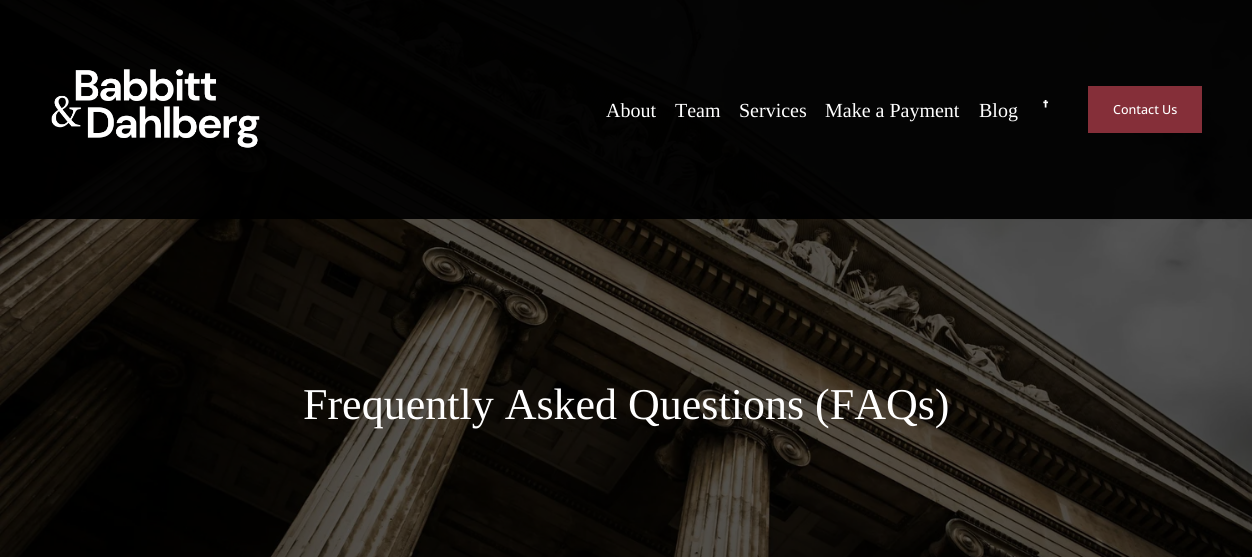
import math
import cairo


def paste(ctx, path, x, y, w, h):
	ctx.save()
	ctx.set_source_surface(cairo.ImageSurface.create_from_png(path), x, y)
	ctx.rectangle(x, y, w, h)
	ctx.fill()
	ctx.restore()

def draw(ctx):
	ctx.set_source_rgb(1, 1, 1)
	ctx.paint()
	paste(ctx, 'media/3.png', 0, 0, 1252, 557)
	ctx.set_source_rgba(0, 0, 0, 0.94)
	ctx.rectangle(0, 0, 1252, 219)
	ctx.fill()
	paste(ctx, 'media/1.png', 51, 69, 209, 79)
	ctx.select_font_face('Liberation Serif')
	ctx.set_font_size(20)
	ctx.set_source_rgb(1, 1, 1)
	for x, y, s in [
		(606, 117, 'About'),
		(675, 117, 'Team'),
		(739, 117, 'Services'),
		(825, 117, 'Make a Payment'),
		(979, 117, 'Blog'),
	]:
		ctx.move_to(x, y)
		ctx.show_text(s)
	paste(ctx, 'media/2.png', 1043, 100, 6, 8)
	ctx.set_source_rgb(0.522, 0.184, 0.224)
	ctx.rectangle(1088, 86, 114, 47)
	ctx.fill()
	ctx.select_font_face('Open Sans Medium')
	ctx.set_font_size(12.5)
	ctx.set_source_rgb(1, 1, 1)
	ctx.move_to(1113, 114)
	ctx.show_text('Contact Us')
	ctx.select_font_face('Liberation Serif')
	ctx.set_font_size(44)
	ctx.move_to(303, 419)
	ctx.show_text('Frequently Asked Questions (FAQs)')


surface = cairo.ImageSurface(cairo.FORMAT_RGB24, 1252, 557)
ctx = cairo.Context(surface)
options = cairo.FontOptions()
options.set_hint_metrics(cairo.HINT_METRICS_OFF)
options.set_hint_style(cairo.HINT_STYLE_NONE)
ctx.set_font_options(options)
ctx.set_miter_limit(4)
draw(ctx)
surface.write_to_png('image.png')
